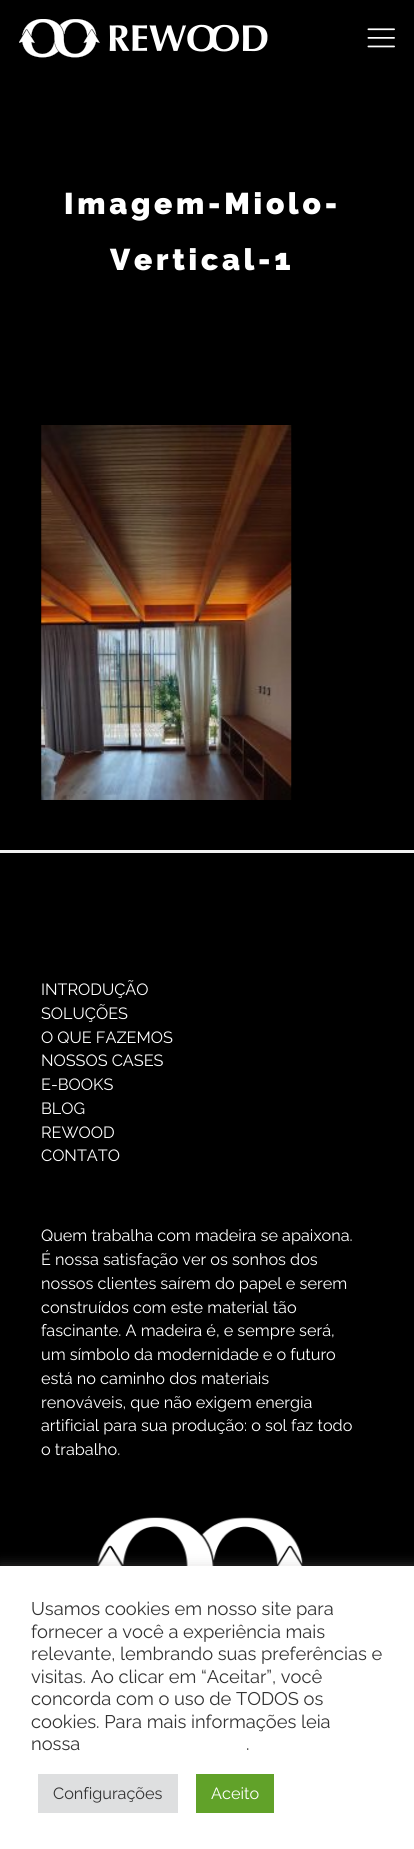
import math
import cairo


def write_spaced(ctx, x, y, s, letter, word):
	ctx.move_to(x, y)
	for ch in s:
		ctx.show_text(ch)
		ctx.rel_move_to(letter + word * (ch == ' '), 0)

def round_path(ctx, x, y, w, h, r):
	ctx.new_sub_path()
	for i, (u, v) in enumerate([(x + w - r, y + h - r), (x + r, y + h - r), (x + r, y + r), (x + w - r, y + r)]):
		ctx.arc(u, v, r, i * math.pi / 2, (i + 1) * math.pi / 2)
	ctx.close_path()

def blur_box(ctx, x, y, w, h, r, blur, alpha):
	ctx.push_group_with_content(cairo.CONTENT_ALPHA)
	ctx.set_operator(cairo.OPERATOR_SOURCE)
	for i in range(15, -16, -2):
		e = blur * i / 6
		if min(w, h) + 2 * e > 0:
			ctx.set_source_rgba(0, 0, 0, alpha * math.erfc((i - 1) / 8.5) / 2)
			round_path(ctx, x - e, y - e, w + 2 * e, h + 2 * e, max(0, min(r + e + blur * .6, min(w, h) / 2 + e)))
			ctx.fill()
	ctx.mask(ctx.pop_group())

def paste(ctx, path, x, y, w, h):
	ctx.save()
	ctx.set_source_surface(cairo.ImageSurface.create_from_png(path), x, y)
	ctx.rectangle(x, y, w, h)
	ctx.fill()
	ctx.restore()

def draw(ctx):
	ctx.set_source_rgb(0, 0, 0)
	ctx.paint()
	paste(ctx, 'media/1.png', 19, 19, 249, 39)
	paste(ctx, 'media/2.png', 367, 28, 28, 20)
	ctx.select_font_face('Raleway Black')
	ctx.set_font_size(30)
	ctx.set_source_rgb(1, 1, 1)
	write_spaced(ctx, 64, 214, 'Imagem-Miolo-', 3.75, 0)
	write_spaced(ctx, 110, 270, 'Vertical-1', 3.75, 0)
	paste(ctx, 'media/3.png', 41, 425, 251, 375)
	ctx.set_source_rgb(0.941, 0.941, 0.941)
	ctx.rectangle(0, 850, 414, 3)
	ctx.fill()
	ctx.select_font_face('Raleway')
	ctx.set_font_size(16.25)
	ctx.set_source_rgb(1, 1, 1)
	for x, y, s in [
		(41, 995, 'INTRODUÇÃO'),
		(41, 1019, 'SOLUÇÕES'),
		(41, 1043, 'O QUE FAZEMOS'),
		(41, 1066, 'NOSSOS CASES'),
		(41, 1090, 'E-BOOKS'),
		(41, 1114, 'BLOG'),
		(41, 1138, 'REWOOD'),
		(41, 1161, 'CONTATO'),
		(41, 1241, 'Quem trabalha com madeira se apaixona.'),
		(41, 1265, 'É nossa satisfação ver os sonhos dos'),
		(41, 1289, 'nossos clientes saírem do papel e serem'),
		(41, 1313, 'construídos com este material tão'),
		(41, 1336, 'fascinante. A madeira é, e sempre será,'),
		(41, 1360, 'um símbolo da modernidade e o futuro'),
		(41, 1384, 'está no caminho dos materiais'),
		(41, 1408, 'renováveis, que não exigem energia'),
		(41, 1431, 'artificial para sua produção: o sol faz todo'),
		(41, 1455, 'o trabalho.'),
	]:
		ctx.move_to(x, y)
		ctx.show_text(s)
	paste(ctx, 'media/4.png', 97, 1517, 206, 49)
	ctx.set_source_rgb(0.675, 0.671, 0.671)
	blur_box(ctx, 0, 1565, 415, 284, 0, 6, 0.3)
	ctx.set_source_rgb(1, 1, 1)
	ctx.rectangle(0, 1566, 414, 283)
	ctx.fill()
	ctx.set_font_size(18.3)
	ctx.set_source_rgb(0.2, 0.2, 0.2)
	for x, y, s in [
		(31, 1615, 'Usamos cookies em nosso site para'),
		(31, 1638, 'fornecer a você a experiência mais'),
		(31, 1660, 'relevante, lembrando suas preferências e'),
		(31, 1683, 'visitas. Ao clicar em “Aceitar”, você'),
		(31, 1705, 'concorda com o uso de TODOS os'),
		(31, 1728, 'cookies. Para mais informações leia'),
		(31, 1750, 'nossa'),
		(246, 1750, '.'),
	]:
		ctx.move_to(x, y)
		ctx.show_text(s)
	ctx.set_source_rgb(0.871, 0.875, 0.878)
	ctx.rectangle(38, 1774, 140, 39)
	ctx.fill()
	ctx.set_font_size(16.25)
	ctx.set_source_rgb(0.2, 0.2, 0.2)
	ctx.move_to(53, 1799)
	ctx.show_text('Configurações')
	ctx.set_source_rgb(0.38, 0.635, 0.161)
	ctx.rectangle(196, 1774, 78, 39)
	ctx.fill()
	ctx.set_source_rgb(1, 1, 1)
	ctx.move_to(211, 1799)
	ctx.show_text('Aceito')


surface = cairo.ImageSurface(cairo.FORMAT_RGB24, 414, 1849)
ctx = cairo.Context(surface)
options = cairo.FontOptions()
options.set_hint_metrics(cairo.HINT_METRICS_OFF)
options.set_hint_style(cairo.HINT_STYLE_NONE)
ctx.set_font_options(options)
ctx.set_miter_limit(4)
draw(ctx)
surface.write_to_png('image.png')
